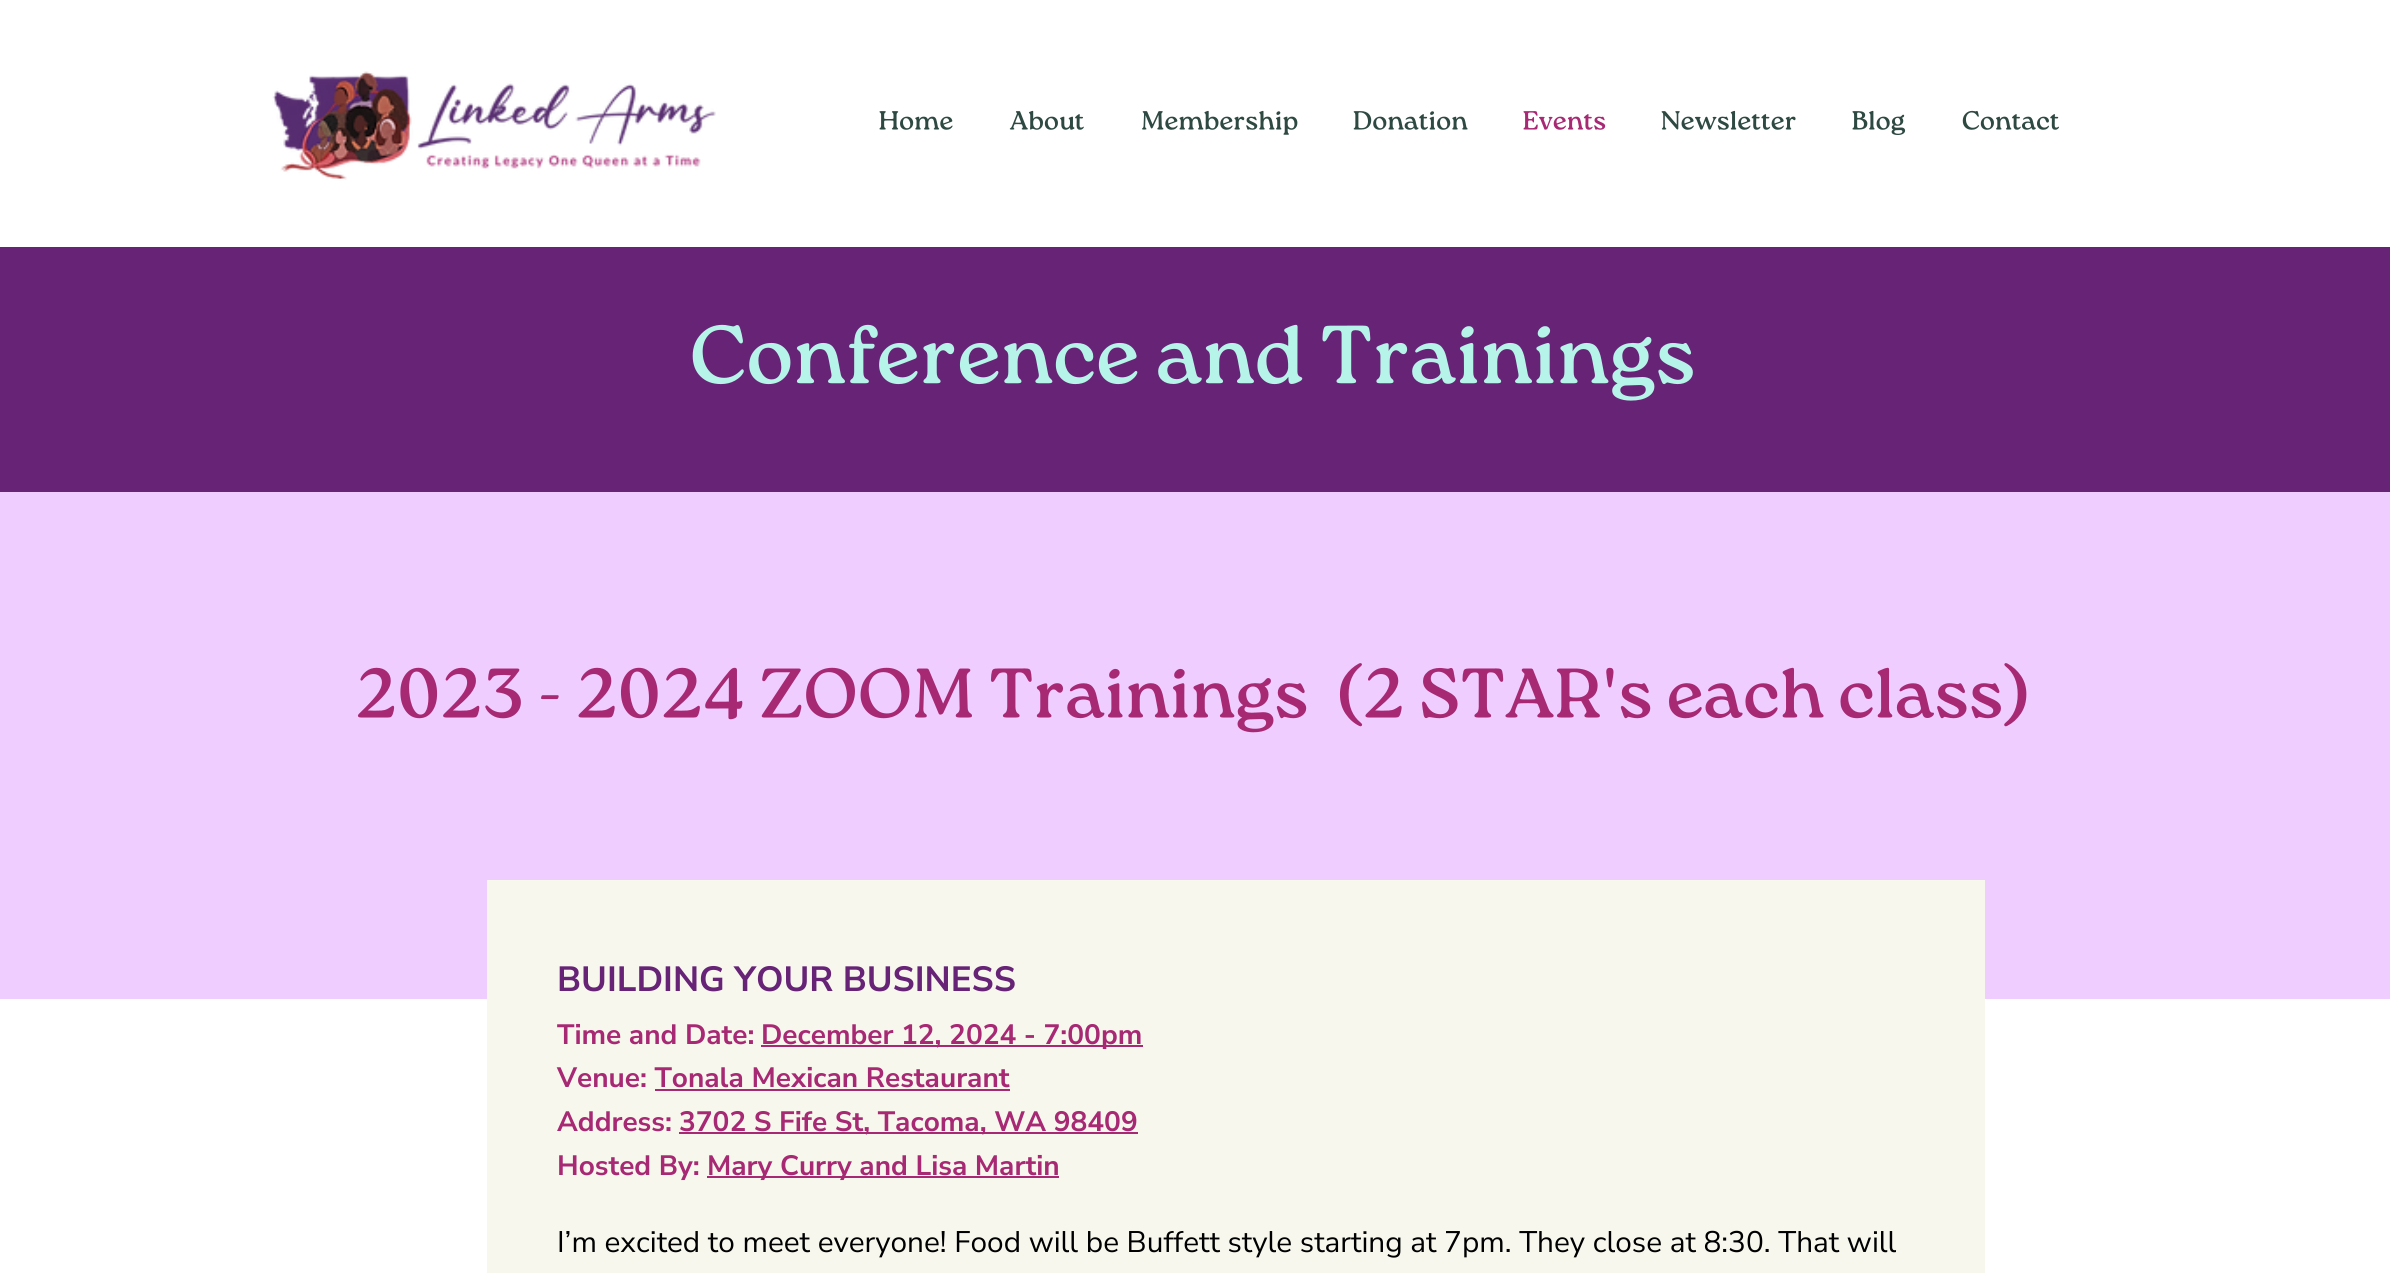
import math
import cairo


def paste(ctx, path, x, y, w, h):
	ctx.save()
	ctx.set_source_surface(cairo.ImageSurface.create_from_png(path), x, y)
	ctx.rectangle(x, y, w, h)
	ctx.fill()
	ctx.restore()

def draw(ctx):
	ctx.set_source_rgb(1, 1, 1)
	ctx.paint()
	paste(ctx, 'media/1.png', 272, 71, 444, 109)
	paste(ctx, 'media/2.png', 879, 111, 74, 19)
	paste(ctx, 'media/3.png', 1009, 110, 75, 20)
	paste(ctx, 'media/4.png', 1142, 110, 156, 25)
	paste(ctx, 'media/5.png', 1353, 111, 115, 19)
	paste(ctx, 'media/6.png', 1523, 111, 83, 19)
	paste(ctx, 'media/7.png', 1661, 110, 135, 20)
	paste(ctx, 'media/8.png', 1852, 110, 54, 25)
	paste(ctx, 'media/9.png', 1962, 110, 97, 20)
	ctx.set_source_rgb(0.404, 0.137, 0.463)
	ctx.rectangle(0, 247, 2390, 245)
	ctx.fill()
	paste(ctx, 'media/10.png', 692, 324, 1001, 77)
	ctx.set_source_rgb(0.941, 0.804, 1)
	ctx.rectangle(0, 492, 2390, 507)
	ctx.fill()
	paste(ctx, 'media/11.png', 357, 663, 1670, 70)
	ctx.set_source_rgb(0.965, 0.965, 0.933)
	ctx.rectangle(487, 880, 1498, 393)
	ctx.fill()
	ctx.select_font_face('Nunito Sans', cairo.FONT_SLANT_NORMAL, cairo.FONT_WEIGHT_BOLD)
	ctx.set_font_size(35)
	ctx.set_source_rgb(0.404, 0.137, 0.463)
	ctx.move_to(557, 991)
	ctx.show_text('BUILDING YOUR BUSINESS')
	ctx.set_font_size(28)
	ctx.set_source_rgb(0.655, 0.161, 0.451)
	ctx.move_to(557, 1044)
	ctx.show_text('Time and Date:')
	ctx.rectangle(761, 1045, 382, 2)
	ctx.fill()
	ctx.move_to(761, 1044)
	ctx.show_text('December 12, 2024 - 7:00pm')
	ctx.move_to(557, 1087)
	ctx.show_text('Venue: Tonala Mexican Restaurant')
	ctx.rectangle(655, 1089, 355, 2)
	ctx.fill()
	ctx.move_to(557, 1131)
	ctx.show_text('Address:')
	ctx.rectangle(679, 1132, 459, 2)
	ctx.fill()
	ctx.move_to(679, 1131)
	ctx.show_text('3702 S Fife St, Tacoma, WA 98409')
	ctx.move_to(557, 1175)
	ctx.show_text('Hosted By:')
	ctx.rectangle(707, 1176, 352, 2)
	ctx.fill()
	ctx.move_to(707, 1175)
	ctx.show_text('Mary Curry and Lisa Martin')
	ctx.select_font_face('Nunito Sans')
	ctx.set_font_size(29.75)
	ctx.set_source_rgb(0, 0, 0)
	ctx.move_to(557, 1252)
	ctx.show_text('I’m excited to meet everyone! Food will be Buffett style starting at 7pm. They close at 8:30. That will')


surface = cairo.ImageSurface(cairo.FORMAT_RGB24, 2390, 1273)
ctx = cairo.Context(surface)
options = cairo.FontOptions()
options.set_hint_metrics(cairo.HINT_METRICS_OFF)
options.set_hint_style(cairo.HINT_STYLE_NONE)
ctx.set_font_options(options)
ctx.set_miter_limit(4)
draw(ctx)
surface.write_to_png('image.png')
